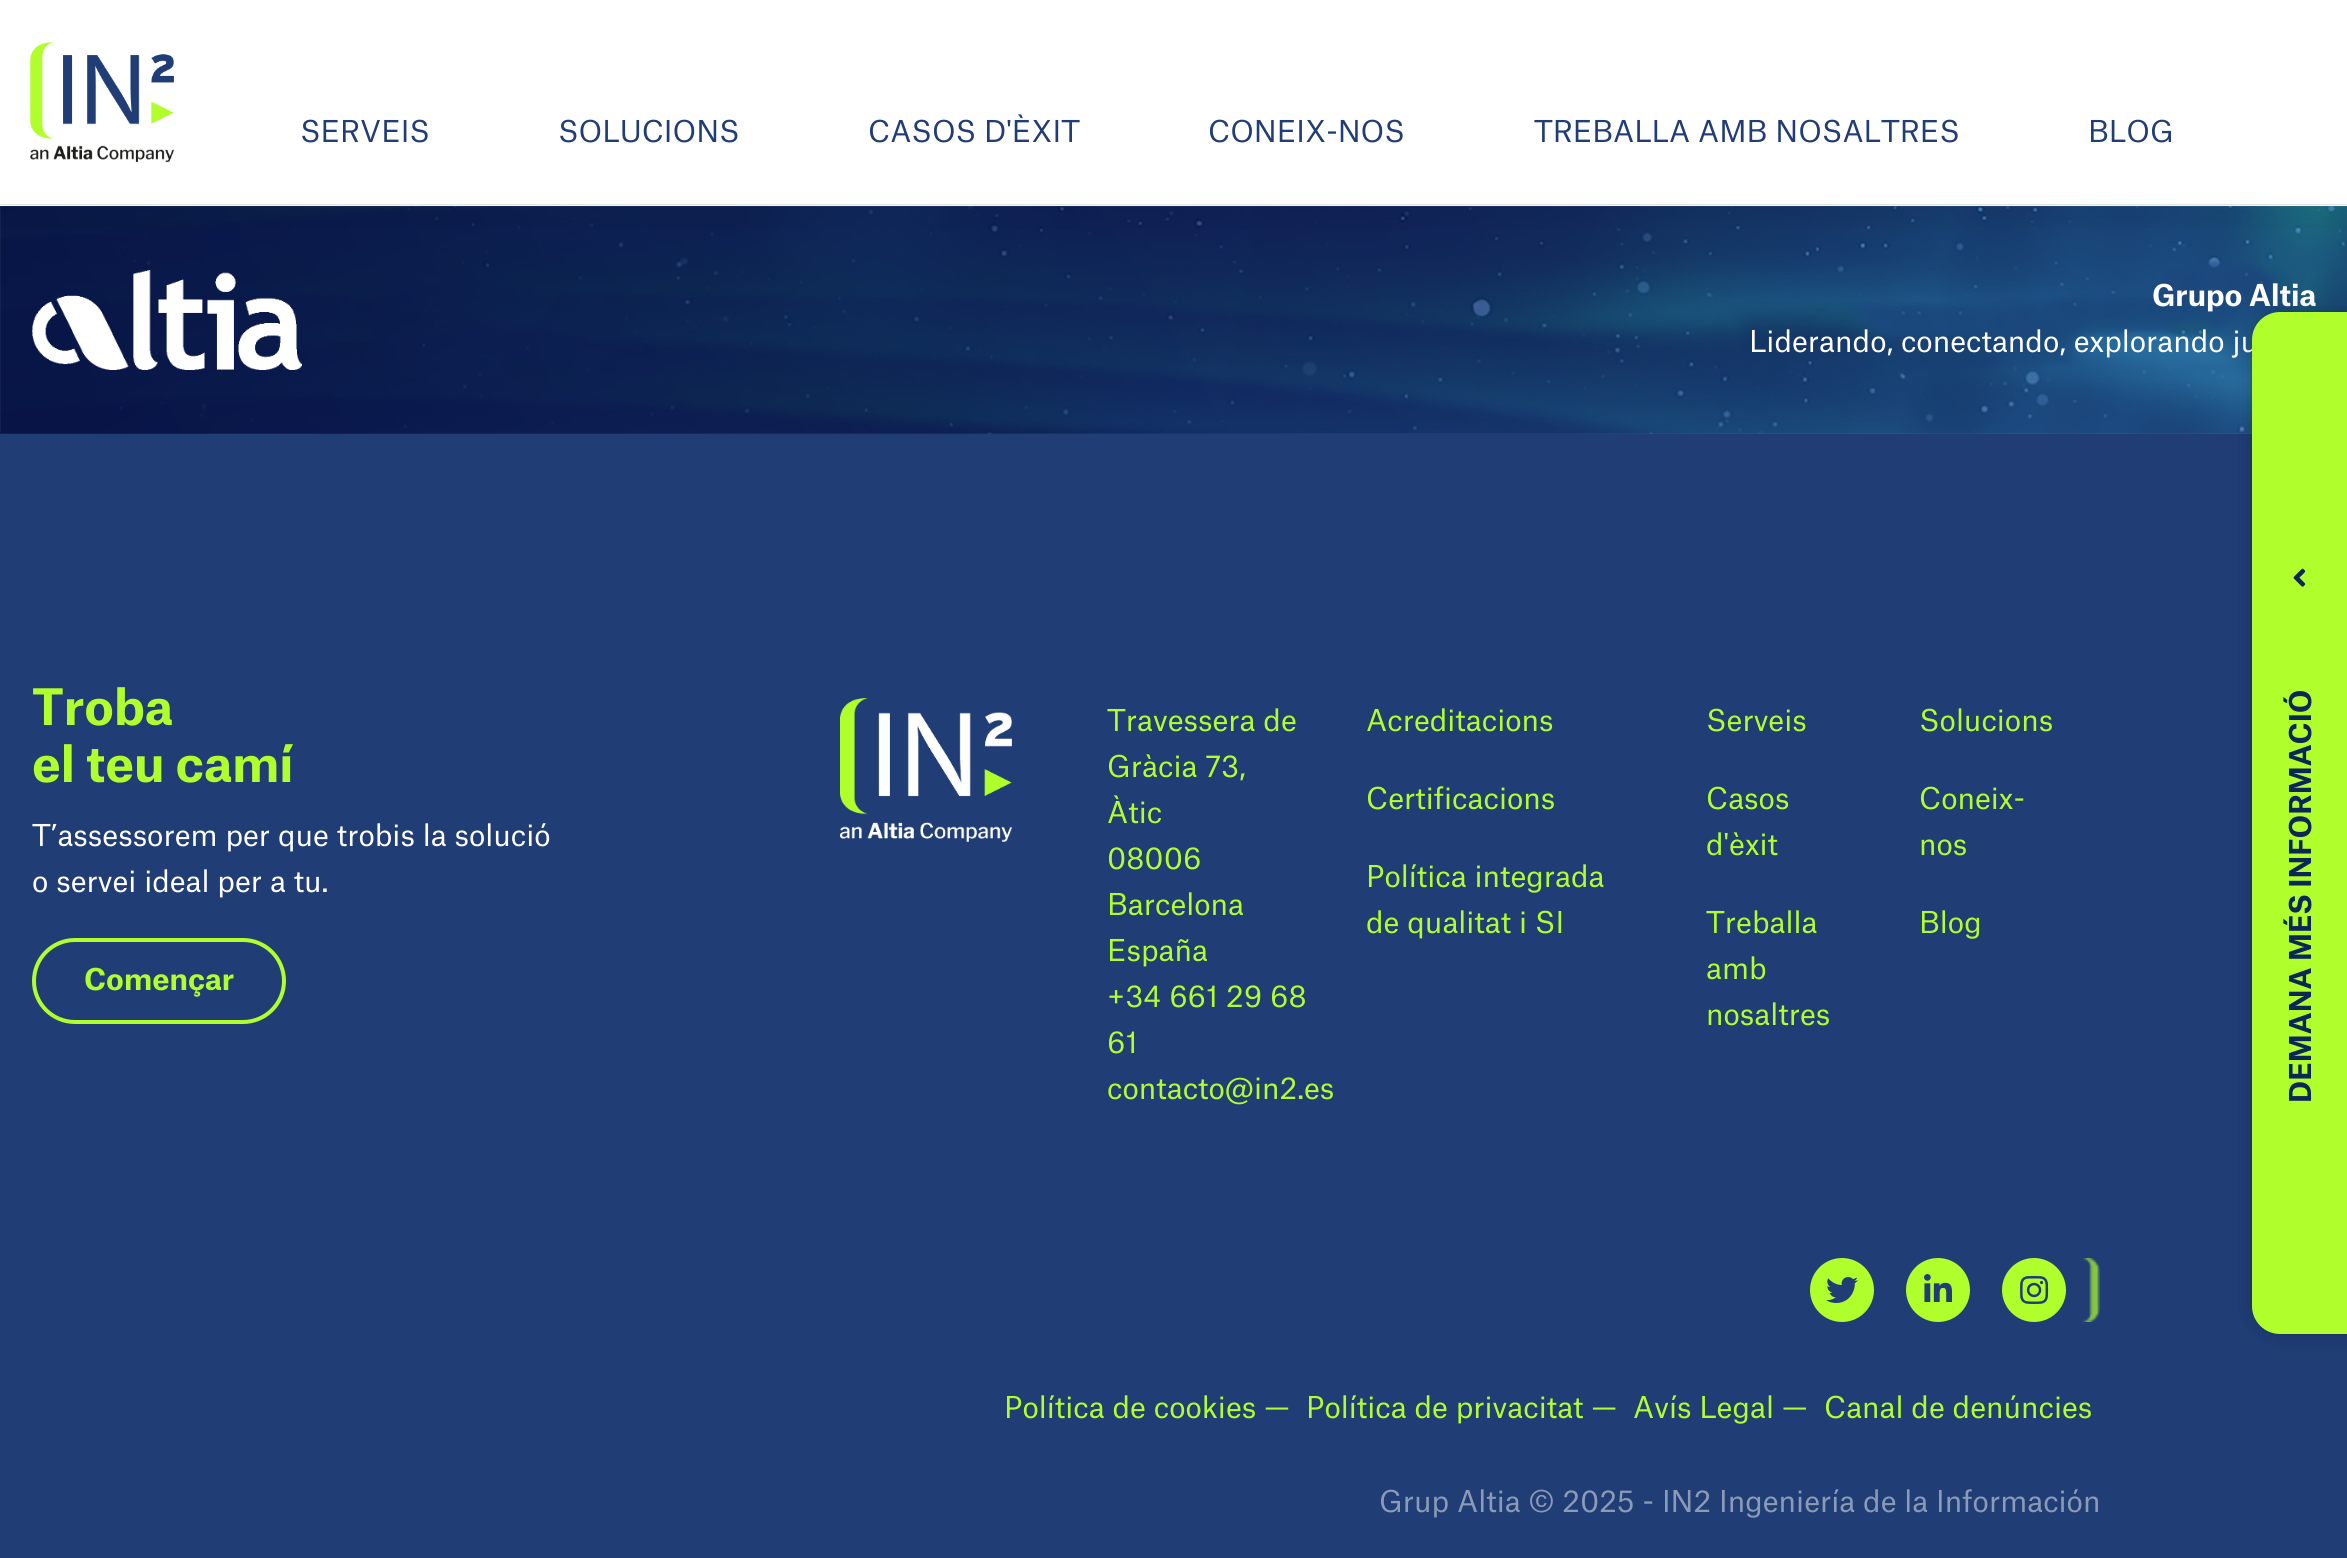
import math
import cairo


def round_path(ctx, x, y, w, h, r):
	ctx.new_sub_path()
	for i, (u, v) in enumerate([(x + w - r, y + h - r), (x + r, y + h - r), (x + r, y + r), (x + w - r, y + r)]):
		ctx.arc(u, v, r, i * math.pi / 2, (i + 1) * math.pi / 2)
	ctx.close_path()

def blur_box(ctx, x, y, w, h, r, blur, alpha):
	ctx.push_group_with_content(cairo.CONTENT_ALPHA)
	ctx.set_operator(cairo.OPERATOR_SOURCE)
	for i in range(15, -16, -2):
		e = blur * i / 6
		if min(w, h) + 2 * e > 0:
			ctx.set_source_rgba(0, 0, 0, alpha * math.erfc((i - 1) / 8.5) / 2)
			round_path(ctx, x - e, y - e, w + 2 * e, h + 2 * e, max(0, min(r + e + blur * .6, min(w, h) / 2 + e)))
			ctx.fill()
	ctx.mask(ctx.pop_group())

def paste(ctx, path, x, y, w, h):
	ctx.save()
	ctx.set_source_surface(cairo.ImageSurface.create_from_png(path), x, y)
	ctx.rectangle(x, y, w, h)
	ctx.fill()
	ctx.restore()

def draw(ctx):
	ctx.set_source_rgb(1, 1, 1)
	ctx.paint()
	paste(ctx, 'media/2.png', 0, 206, 2347, 228)
	ctx.save()
	ctx.rectangle(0, 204, 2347, 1)
	ctx.clip()
	ctx.set_source_rgb(0, 0, 0)
	blur_box(ctx, 0, -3, 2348, 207, 0, 1, 0.2)
	ctx.restore()
	paste(ctx, 'media/3.png', 32, 270, 270, 100)
	ctx.save()
	ctx.rectangle(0, 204, 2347, 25)
	ctx.clip()
	ctx.set_source_rgb(0, 0, 0)
	blur_box(ctx, 0, -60, 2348, 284, 0, 20, 0.05)
	ctx.restore()
	paste(ctx, 'media/1.png', 30, 42, 144, 121)
	ctx.select_font_face('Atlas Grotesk')
	ctx.set_font_size(28.8)
	ctx.set_source_rgb(0.125, 0.239, 0.459)
	for x, y, s in [
		(300, 142, 'SERVEIS'),
		(558, 142, 'SOLUCIONS'),
		(868, 142, 'CASOS D\'ÈXIT'),
		(1208, 142, 'CONEIX-NOS'),
		(1534, 142, 'TREBALLA AMB NOSALTRES'),
		(2088, 142, 'BLOG'),
	]:
		ctx.move_to(x, y)
		ctx.show_text(s)
	ctx.select_font_face('Atlas Grotesk', cairo.FONT_SLANT_NORMAL, cairo.FONT_WEIGHT_BOLD)
	ctx.set_source_rgb(1, 1, 1)
	ctx.move_to(2152, 306)
	ctx.show_text('Grupo Altia')
	ctx.select_font_face('Atlas Grotesk')
	ctx.move_to(1749, 352)
	ctx.show_text('Liderando, conectando, explorando ju')
	ctx.set_source_rgb(0.125, 0.239, 0.459)
	ctx.rectangle(0, 434, 2347, 1124)
	ctx.fill()
	ctx.select_font_face('Atlas Grotesk', cairo.FONT_SLANT_NORMAL, cairo.FONT_WEIGHT_BOLD)
	ctx.set_font_size(48)
	ctx.set_source_rgb(0.69, 1, 0.176)
	ctx.move_to(32, 725)
	ctx.show_text('Troba')
	ctx.move_to(32, 782)
	ctx.show_text('el teu camí')
	ctx.select_font_face('Atlas Grotesk')
	ctx.set_font_size(28.8)
	ctx.set_source_rgb(1, 1, 1)
	ctx.move_to(32, 846)
	ctx.show_text('T’assessorem per que trobis la solució')
	ctx.move_to(32, 892)
	ctx.show_text('o servei ideal per a tu.')
	round_path(ctx, 34, 940, 250, 82, 41)
	ctx.set_source_rgb(0.69, 1, 0.176)
	ctx.set_line_width(4)
	ctx.stroke()
	ctx.select_font_face('Atlas Grotesk', cairo.FONT_SLANT_NORMAL, cairo.FONT_WEIGHT_BOLD)
	ctx.move_to(84, 990)
	ctx.show_text('Començar')
	paste(ctx, 'media/4.png', 840, 698, 172, 144)
	ctx.select_font_face('Atlas Grotesk')
	for x, y, s in [
		(1107, 731, 'Travessera de'),
		(1107, 777, 'Gràcia 73,'),
		(1107, 823, 'Àtic'),
		(1107, 869, '08006'),
		(1107, 915, 'Barcelona'),
		(1107, 961, 'España'),
		(1107, 1007, '+34 661 29 68'),
		(1107, 1053, '61'),
		(1107, 1099, 'contacto@in2.es'),
		(1366, 731, 'Acreditacions'),
		(1366, 809, 'Certificacions'),
		(1366, 887, 'Política integrada'),
		(1366, 933, 'de qualitat i SI'),
		(1706, 731, 'Serveis'),
		(1919, 731, 'Solucions'),
		(1706, 809, 'Casos'),
		(1706, 855, 'd\'èxit'),
		(1919, 809, 'Coneix-'),
		(1919, 855, 'nos'),
		(1706, 933, 'Treballa'),
		(1706, 979, 'amb'),
		(1706, 1025, 'nosaltres'),
		(1919, 933, 'Blog'),
	]:
		ctx.move_to(x, y)
		ctx.show_text(s)
	ctx.new_path()
	ctx.arc(1842, 1290, 32, 0, 2 * math.pi)
	ctx.fill()
	paste(ctx, 'media/5.png', 1826, 1277, 32, 26)
	ctx.arc(1938, 1290, 32, 0, 2 * math.pi)
	ctx.fill()
	paste(ctx, 'media/6.png', 1924, 1274, 28, 28)
	ctx.arc(2034, 1290, 32, 0, 2 * math.pi)
	ctx.fill()
	paste(ctx, 'media/7.png', 2020, 1276, 29, 28)
	paste(ctx, 'media/8.png', 2082, 1258, 18, 64)
	for x, y, s in [
		(1004, 1418, 'Política de cookies —'),
		(1306, 1418, 'Política de privacitat —'),
		(1633, 1418, 'Avís Legal —'),
		(1824, 1418, 'Canal de denúncies'),
	]:
		ctx.move_to(x, y)
		ctx.show_text(s)
	ctx.set_source_rgb(0.545, 0.604, 0.718)
	ctx.move_to(1379, 1512)
	ctx.show_text('Grup Altia © 2025 - IN2 Ingeniería de la Información')
	ctx.set_source_rgb(0, 0, 0)
	blur_box(ctx, 2262, 322, 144, 1002, 18, 13.5, 0.5)
	ctx.set_source_rgb(0.69, 1, 0.176)
	ctx.new_path()
	ctx.move_to(2280, 312)
	ctx.line_to(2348, 312)
	ctx.line_to(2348, 1334)
	ctx.line_to(2280, 1334)
	ctx.curve_to(2264.5, 1334, 2252, 1321.5, 2252, 1306)
	ctx.line_to(2252, 340)
	ctx.curve_to(2252, 324.5, 2264.5, 312, 2280, 312)
	ctx.close_path()
	ctx.fill()
	paste(ctx, 'media/9.png', 2293, 568, 13, 19)
	ctx.select_font_face('Atlas Grotesk', cairo.FONT_SLANT_NORMAL, cairo.FONT_WEIGHT_BOLD)
	ctx.set_source_rgb(0.047, 0.149, 0.345)
	ctx.save()
	ctx.translate(2311, 1103)
	ctx.rotate(-90 * math.pi / 180)
	ctx.move_to(0, 0)
	ctx.show_text('DEMANA MÉS INFORMACIÓ')
	ctx.restore()


surface = cairo.ImageSurface(cairo.FORMAT_RGB24, 2347, 1558)
ctx = cairo.Context(surface)
options = cairo.FontOptions()
options.set_hint_metrics(cairo.HINT_METRICS_OFF)
options.set_hint_style(cairo.HINT_STYLE_NONE)
ctx.set_font_options(options)
ctx.set_miter_limit(4)
draw(ctx)
surface.write_to_png('image.png')
